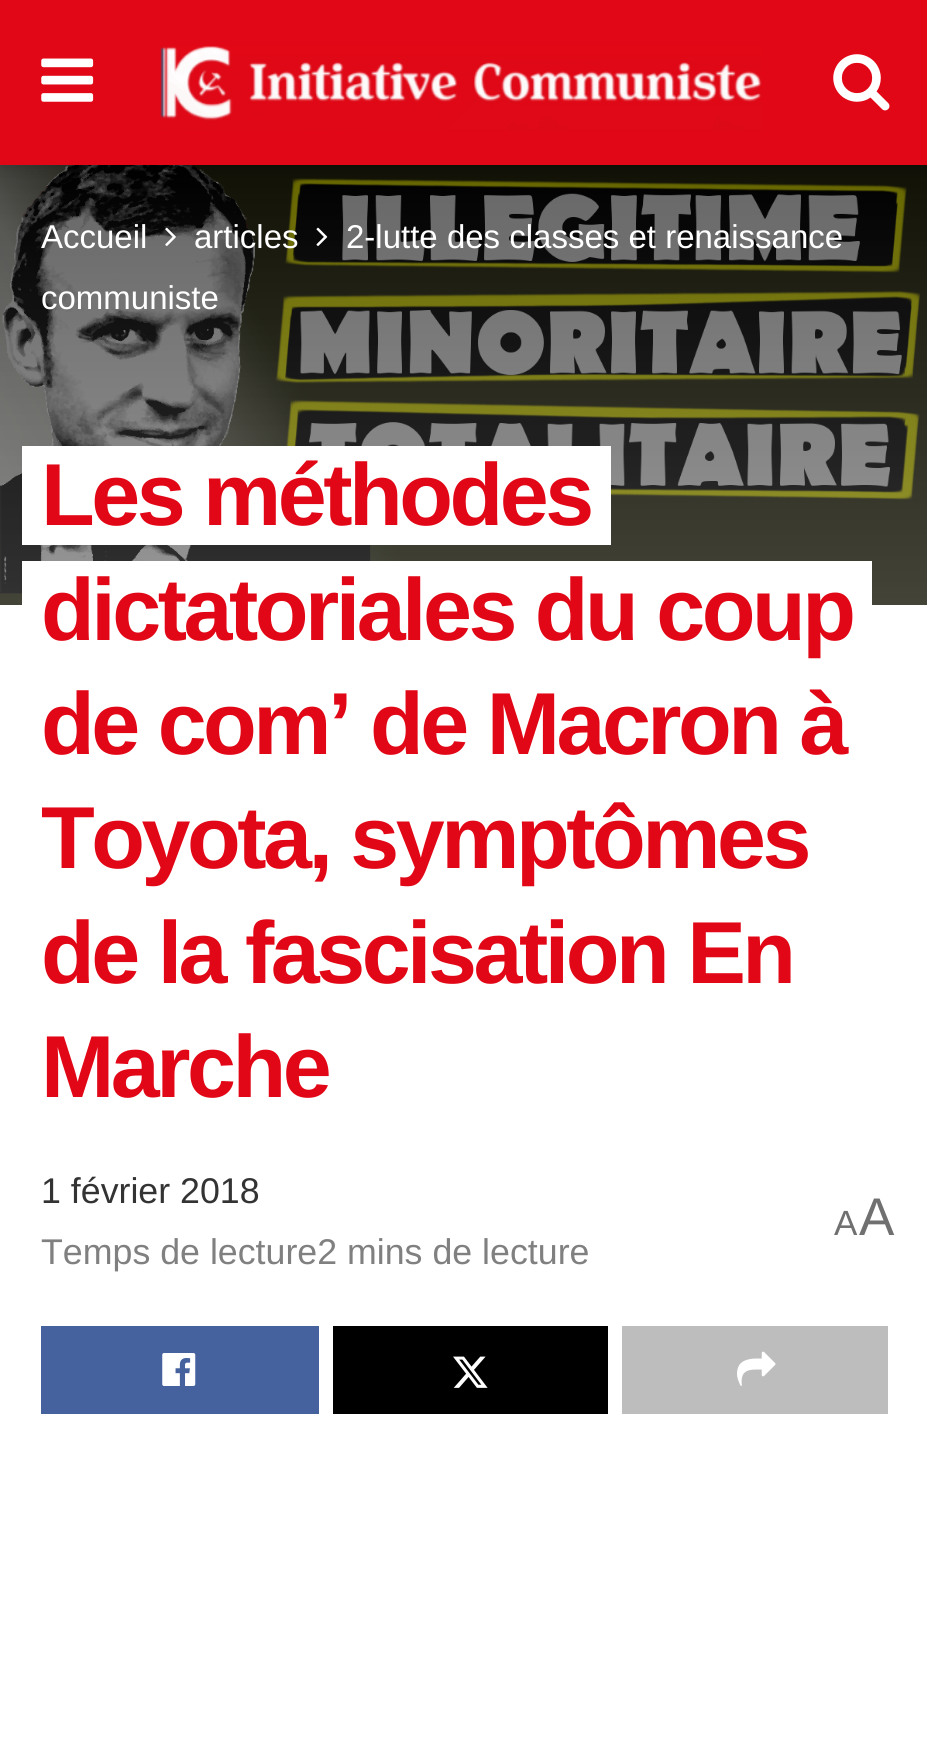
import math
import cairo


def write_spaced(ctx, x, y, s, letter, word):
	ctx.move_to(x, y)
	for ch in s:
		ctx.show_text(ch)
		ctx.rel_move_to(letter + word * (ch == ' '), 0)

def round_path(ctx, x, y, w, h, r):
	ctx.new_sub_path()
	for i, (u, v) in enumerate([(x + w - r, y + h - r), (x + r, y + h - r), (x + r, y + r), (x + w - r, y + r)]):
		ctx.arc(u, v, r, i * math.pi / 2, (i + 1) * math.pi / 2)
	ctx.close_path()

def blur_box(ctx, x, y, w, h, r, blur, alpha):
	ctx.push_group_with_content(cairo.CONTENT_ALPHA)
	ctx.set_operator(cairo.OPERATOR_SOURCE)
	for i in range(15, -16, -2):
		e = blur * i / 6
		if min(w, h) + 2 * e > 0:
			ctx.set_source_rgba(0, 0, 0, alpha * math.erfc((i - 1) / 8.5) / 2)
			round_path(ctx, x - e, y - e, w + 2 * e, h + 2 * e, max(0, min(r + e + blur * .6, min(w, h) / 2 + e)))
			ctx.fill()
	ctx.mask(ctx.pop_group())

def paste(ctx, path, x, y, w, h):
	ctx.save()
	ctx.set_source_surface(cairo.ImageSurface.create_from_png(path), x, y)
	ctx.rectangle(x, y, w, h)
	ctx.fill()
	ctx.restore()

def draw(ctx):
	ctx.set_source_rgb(1, 1, 1)
	ctx.paint()
	gradient = cairo.LinearGradient(465, 165, 465, 605)
	gradient.add_color_stop_rgba(0, 0, 0, 0, 1)
	gradient.add_color_stop_rgba(1, 0.329, 0.329, 0.329, 1)
	ctx.set_source(gradient)
	ctx.rectangle(0, 165, 927, 440)
	ctx.fill()
	paste(ctx, 'media/4.png', 0, 165, 927, 440)
	ctx.set_source_rgb(0, 0, 0)
	blur_box(ctx, 0, 6, 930, 165, 0, 8, 0.1)
	ctx.set_source_rgb(0.886, 0.031, 0.086)
	ctx.rectangle(0, 0, 927, 165)
	ctx.fill()
	paste(ctx, 'media/1.png', 41, 58, 53, 44)
	paste(ctx, 'media/2.png', 160, 46, 602, 85)
	paste(ctx, 'media/3.png', 833, 54, 57, 57)
	ctx.select_font_face('Liberation Sans')
	ctx.set_font_size(33)
	ctx.set_source_rgb(1, 1, 1)
	ctx.move_to(41, 248)
	ctx.show_text('Accueil')
	paste(ctx, 'media/5.png', 165, 227, 11, 19)
	ctx.move_to(194, 248)
	ctx.show_text('articles')
	paste(ctx, 'media/6.png', 316, 227, 12, 19)
	ctx.move_to(346, 248)
	ctx.show_text('2-lutte des classes et renaissance')
	ctx.move_to(41, 309)
	ctx.show_text('communiste')
	ctx.new_path()
	ctx.move_to(22, 446)
	ctx.line_to(22, 545)
	ctx.line_to(572, 545)
	ctx.line_to(572, 544)
	ctx.line_to(41, 544)
	ctx.line_to(41, 446)
	ctx.close_path()
	ctx.fill()
	ctx.new_path()
	ctx.move_to(61, 544)
	ctx.line_to(61, 545)
	ctx.line_to(611, 545)
	ctx.line_to(611, 446)
	ctx.line_to(591, 446)
	ctx.line_to(591, 544)
	ctx.close_path()
	ctx.fill()
	ctx.rectangle(41, 446, 550, 98)
	ctx.fill()
	ctx.select_font_face('Liberation Sans', cairo.FONT_SLANT_NORMAL, cairo.FONT_WEIGHT_BOLD)
	ctx.set_font_size(88)
	ctx.set_source_rgb(0.886, 0.031, 0.086)
	write_spaced(ctx, 41, 525, 'Les méthodes', -3.5, 0)
	ctx.set_source_rgb(1, 1, 1)
	ctx.rectangle(41, 561, 831, 44)
	ctx.fill()
	ctx.set_source_rgb(0.886, 0.031, 0.086)
	write_spaced(ctx, 41, 640, 'dictatoriales du coup', -3.5, 0)
	ctx.set_source_rgb(1, 1, 1)
	ctx.rectangle(22, 561, 19, 44)
	ctx.fill()
	ctx.set_source_rgb(0.886, 0.031, 0.086)
	for x, y, s in [
		(41, 754, 'de com’ de Macron à'),
		(41, 868, 'Toyota, symptômes'),
		(41, 983, 'de la fascisation En'),
		(41, 1097, 'Marche'),
	]:
		write_spaced(ctx, x, y, s, -3.5, 0)
	ctx.select_font_face('Liberation Sans')
	ctx.set_font_size(35.75)
	ctx.set_source_rgb(0.2, 0.2, 0.2)
	ctx.move_to(41, 1203)
	ctx.show_text('1 février 2018')
	ctx.set_source_rgb(0.502, 0.502, 0.502)
	ctx.move_to(41, 1264)
	ctx.show_text('Temps de lecture2 mins de lecture')
	ctx.set_font_size(35)
	ctx.set_source_rgb(0.439, 0.439, 0.439)
	ctx.move_to(834, 1235)
	ctx.show_text('A')
	ctx.set_font_size(53)
	ctx.move_to(859, 1235)
	ctx.show_text('A')
	ctx.set_source_rgb(0.271, 0.384, 0.624)
	ctx.rectangle(41, 1326, 278, 88)
	ctx.fill()
	paste(ctx, 'media/7.png', 162, 1353, 34, 33)
	ctx.set_source_rgb(0, 0, 0)
	ctx.rectangle(333, 1326, 275, 88)
	ctx.fill()
	paste(ctx, 'media/8.png', 453, 1356, 35, 32)
	ctx.set_source_rgb(0.741, 0.741, 0.741)
	ctx.rectangle(622, 1326, 266, 88)
	ctx.fill()
	paste(ctx, 'media/9.png', 737, 1351, 39, 35)


surface = cairo.ImageSurface(cairo.FORMAT_RGB24, 927, 1740)
ctx = cairo.Context(surface)
options = cairo.FontOptions()
options.set_hint_metrics(cairo.HINT_METRICS_OFF)
options.set_hint_style(cairo.HINT_STYLE_NONE)
ctx.set_font_options(options)
ctx.set_miter_limit(4)
draw(ctx)
surface.write_to_png('image.png')
